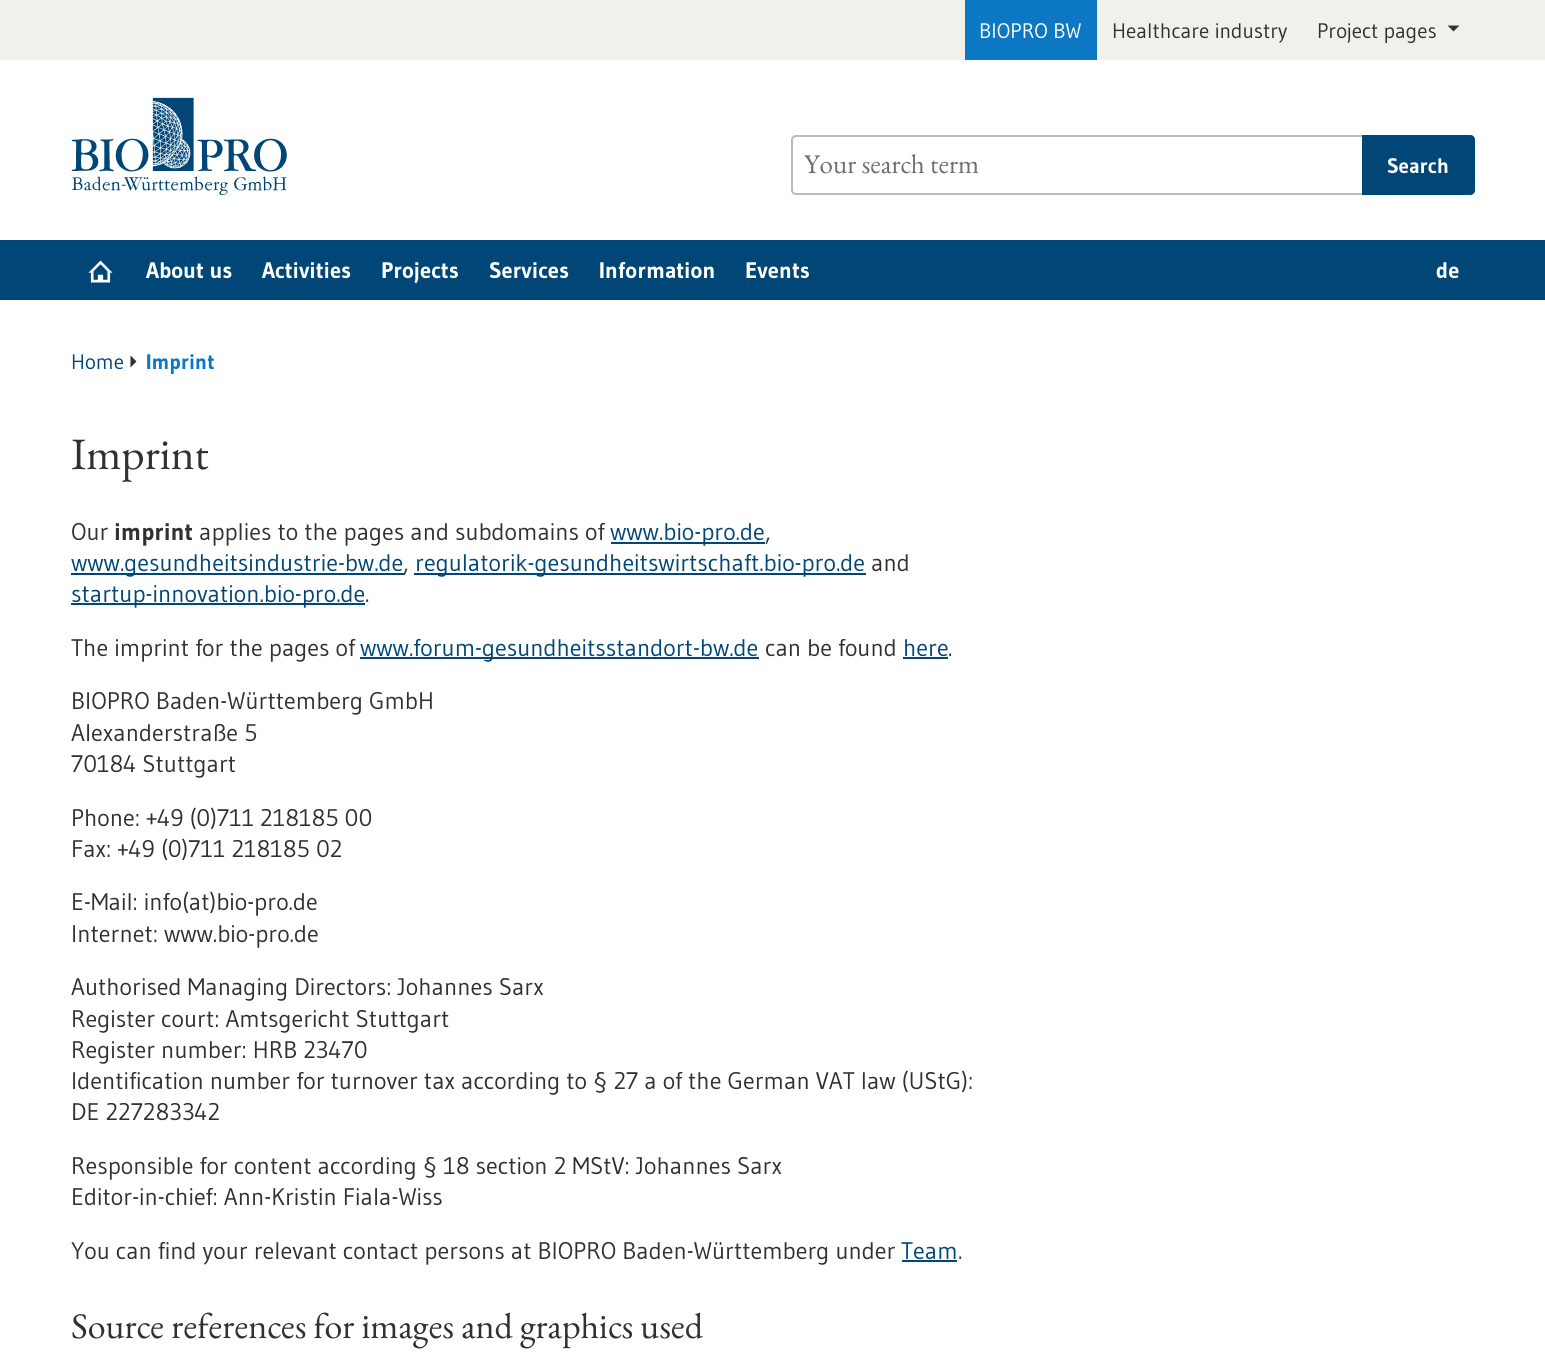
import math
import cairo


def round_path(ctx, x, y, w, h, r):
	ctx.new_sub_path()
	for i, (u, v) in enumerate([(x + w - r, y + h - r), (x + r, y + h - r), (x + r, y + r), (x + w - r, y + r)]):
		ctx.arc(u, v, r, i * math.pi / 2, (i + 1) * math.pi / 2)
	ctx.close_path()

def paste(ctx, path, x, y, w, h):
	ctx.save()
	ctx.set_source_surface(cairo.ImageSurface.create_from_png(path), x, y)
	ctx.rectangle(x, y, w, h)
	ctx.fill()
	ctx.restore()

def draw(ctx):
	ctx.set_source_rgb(1, 1, 1)
	ctx.paint()
	ctx.set_source_rgb(0.945, 0.941, 0.918)
	ctx.rectangle(0, 0, 1545, 60)
	ctx.fill()
	ctx.set_source_rgb(0.047, 0.471, 0.765)
	ctx.rectangle(965, 0, 132, 60)
	ctx.fill()
	ctx.select_font_face('Gudea')
	ctx.set_font_size(21)
	ctx.set_source_rgb(1, 1, 1)
	ctx.move_to(979, 38)
	ctx.show_text('BIOPRO BW')
	ctx.set_source_rgb(0.192, 0.192, 0.192)
	ctx.move_to(1112, 38)
	ctx.show_text('Healthcare industry')
	ctx.move_to(1317, 38)
	ctx.show_text('Project pages')
	ctx.new_path()
	ctx.move_to(1447.5, 25.5)
	ctx.line_to(1459.5, 25.5)
	ctx.line_to(1453.5, 31.5)
	ctx.close_path()
	ctx.fill()
	paste(ctx, 'media/1.png', 71, 97, 216, 98)
	round_path(ctx, 792, 136, 682, 58, 4)
	ctx.set_source_rgb(0.733, 0.733, 0.733)
	ctx.stroke()
	ctx.select_font_face('EB Garamond')
	ctx.set_font_size(27)
	ctx.set_source_rgb(0.431, 0.431, 0.431)
	ctx.move_to(804, 173)
	ctx.show_text('Your search term')
	ctx.set_source_rgb(0, 0.275, 0.463)
	ctx.new_path()
	ctx.move_to(1362, 135)
	ctx.line_to(1470, 135)
	ctx.curve_to(1473, 135, 1475, 137, 1475, 140)
	ctx.line_to(1475, 190)
	ctx.curve_to(1475, 193, 1473, 195, 1470, 195)
	ctx.line_to(1362, 195)
	ctx.close_path()
	ctx.fill()
	ctx.select_font_face('Gudea', cairo.FONT_SLANT_NORMAL, cairo.FONT_WEIGHT_BOLD)
	ctx.set_font_size(21)
	ctx.set_source_rgb(1, 1, 1)
	ctx.move_to(1387, 173)
	ctx.show_text('Search')
	ctx.set_source_rgb(0, 0.275, 0.463)
	ctx.rectangle(0, 240, 1545, 60)
	ctx.fill()
	paste(ctx, 'media/2.png', 88, 260, 25, 23)
	ctx.set_font_size(22.5)
	ctx.set_source_rgb(1, 1, 1)
	for x, y, s in [
		(146, 278, 'About us'),
		(262, 278, 'Activities'),
		(381, 278, 'Projects'),
		(489, 278, 'Services'),
		(599, 278, 'Information'),
		(745, 278, 'Events'),
		(1436, 278, 'de'),
	]:
		ctx.move_to(x, y)
		ctx.show_text(s)
	ctx.select_font_face('Gudea')
	ctx.set_font_size(21)
	ctx.set_source_rgb(0, 0.275, 0.463)
	ctx.move_to(71, 369)
	ctx.show_text('Home')
	ctx.set_source_rgb(0.192, 0.192, 0.192)
	ctx.new_path()
	ctx.move_to(130.5, 367.5)
	ctx.line_to(130.5, 355.5)
	ctx.line_to(136.5, 361.5)
	ctx.close_path()
	ctx.fill()
	ctx.select_font_face('Gudea', cairo.FONT_SLANT_NORMAL, cairo.FONT_WEIGHT_BOLD)
	ctx.set_source_rgb(0.047, 0.471, 0.765)
	ctx.move_to(146, 369)
	ctx.show_text('Imprint')
	ctx.select_font_face('EB Garamond')
	ctx.set_font_size(45)
	ctx.set_source_rgb(0.192, 0.192, 0.192)
	ctx.move_to(71, 469)
	ctx.show_text('Imprint')
	ctx.select_font_face('Gudea')
	ctx.set_font_size(24)
	ctx.move_to(71, 540)
	ctx.show_text('Our')
	ctx.select_font_face('Gudea', cairo.FONT_SLANT_NORMAL, cairo.FONT_WEIGHT_BOLD)
	ctx.move_to(114, 540)
	ctx.show_text('imprint')
	ctx.select_font_face('Gudea')
	ctx.move_to(199, 540)
	ctx.show_text('applies to the pages and subdomains of')
	ctx.set_source_rgb(0, 0.275, 0.463)
	ctx.rectangle(611, 542, 154, 2)
	ctx.fill()
	ctx.move_to(610, 540)
	ctx.show_text('www.bio-pro.de')
	ctx.set_source_rgb(0.192, 0.192, 0.192)
	ctx.move_to(765, 540)
	ctx.show_text(',')
	ctx.set_source_rgb(0, 0.275, 0.463)
	ctx.rectangle(71, 573, 333, 2)
	ctx.fill()
	ctx.move_to(71, 571)
	ctx.show_text('www.gesundheitsindustrie-bw.de')
	ctx.set_source_rgb(0.192, 0.192, 0.192)
	ctx.move_to(403, 571)
	ctx.show_text(',')
	ctx.set_source_rgb(0, 0.275, 0.463)
	ctx.rectangle(414, 573, 452, 2)
	ctx.fill()
	ctx.move_to(415, 571)
	ctx.show_text('regulatorik-gesundheitswirtschaft.bio-pro.de')
	ctx.set_source_rgb(0.192, 0.192, 0.192)
	ctx.move_to(871, 571)
	ctx.show_text('and')
	ctx.set_source_rgb(0, 0.275, 0.463)
	ctx.rectangle(71, 603, 294, 2)
	ctx.fill()
	ctx.move_to(71, 602)
	ctx.show_text('startup-innovation.bio-pro.de')
	ctx.set_source_rgb(0.192, 0.192, 0.192)
	ctx.move_to(365, 602)
	ctx.show_text('.')
	ctx.move_to(71, 656)
	ctx.show_text('The imprint for the pages of')
	ctx.set_source_rgb(0, 0.275, 0.463)
	ctx.rectangle(360, 657, 399, 2)
	ctx.fill()
	ctx.move_to(360, 656)
	ctx.show_text('www.forum-gesundheitsstandort-bw.de')
	ctx.set_source_rgb(0.192, 0.192, 0.192)
	ctx.move_to(765, 656)
	ctx.show_text('can be found')
	ctx.set_source_rgb(0, 0.275, 0.463)
	ctx.move_to(903, 656)
	ctx.show_text('here')
	ctx.rectangle(903, 657, 45, 2)
	ctx.fill()
	ctx.set_source_rgb(0.192, 0.192, 0.192)
	for x, y, s in [
		(948, 656, '.'),
		(71, 709, 'BIOPRO Baden-Württemberg GmbH'),
		(71, 741, 'Alexanderstraße 5'),
		(71, 772, '70184 Stuttgart'),
		(71, 826, 'Phone: +49 (0)711 218185 00'),
		(71, 857, 'Fax: +49 (0)711 218185 02'),
		(71, 910, 'E-Mail: info(at)bio-pro.de'),
		(71, 942, 'Internet: www.bio-pro.de'),
		(71, 995, 'Authorised Managing Directors: Johannes Sarx'),
		(71, 1027, 'Register court: Amtsgericht Stuttgart'),
		(71, 1058, 'Register number: HRB 23470'),
		(71, 1089, 'Identification number for turnover tax according to § 27 a of the German VAT law (UStG):'),
		(71, 1120, 'DE 227283342'),
		(71, 1174, 'Responsible for content according § 18 section 2 MStV: Johannes Sarx'),
		(71, 1205, 'Editor-in-chief: Ann-Kristin Fiala-Wiss'),
		(71, 1259, 'You can find your relevant contact persons at BIOPRO Baden-Württemberg under'),
	]:
		ctx.move_to(x, y)
		ctx.show_text(s)
	ctx.set_source_rgb(0, 0.275, 0.463)
	ctx.move_to(901, 1259)
	ctx.show_text('Team')
	ctx.rectangle(902, 1260, 55, 2)
	ctx.fill()
	ctx.set_source_rgb(0.192, 0.192, 0.192)
	ctx.move_to(958, 1259)
	ctx.show_text('.')
	ctx.select_font_face('EB Garamond')
	ctx.set_font_size(36)
	ctx.move_to(71, 1338)
	ctx.show_text('Source references for images and graphics used')


surface = cairo.ImageSurface(cairo.FORMAT_RGB24, 1545, 1356)
ctx = cairo.Context(surface)
options = cairo.FontOptions()
options.set_hint_metrics(cairo.HINT_METRICS_OFF)
options.set_hint_style(cairo.HINT_STYLE_NONE)
ctx.set_font_options(options)
ctx.set_miter_limit(4)
draw(ctx)
surface.write_to_png('image.png')
